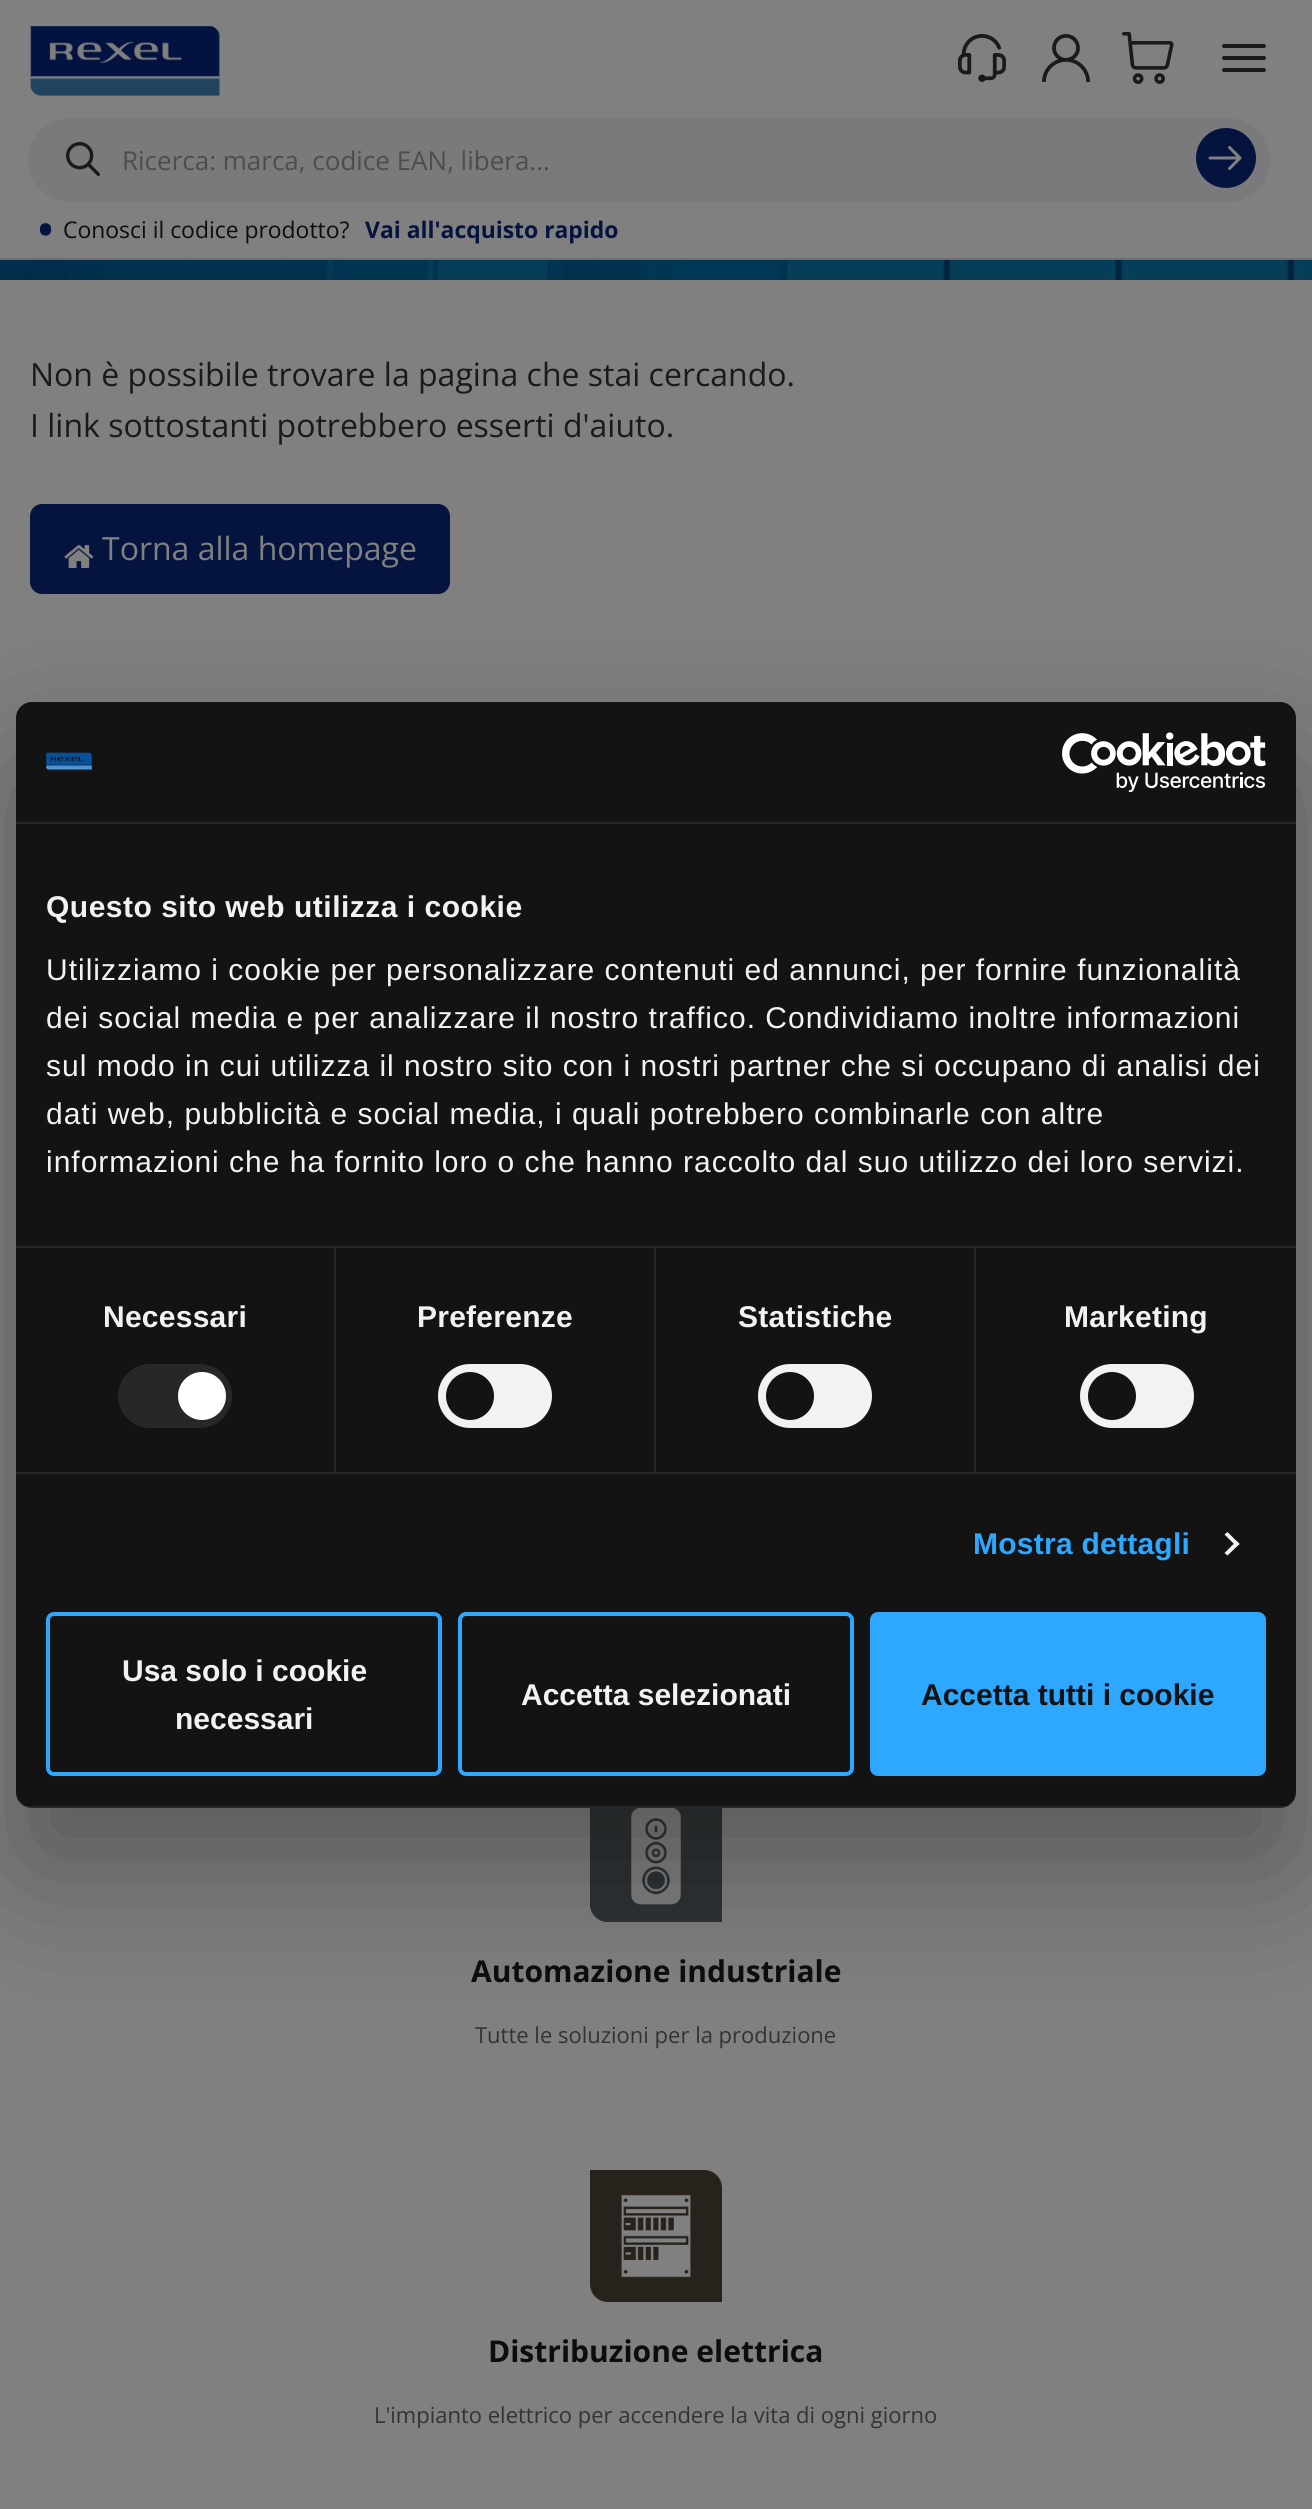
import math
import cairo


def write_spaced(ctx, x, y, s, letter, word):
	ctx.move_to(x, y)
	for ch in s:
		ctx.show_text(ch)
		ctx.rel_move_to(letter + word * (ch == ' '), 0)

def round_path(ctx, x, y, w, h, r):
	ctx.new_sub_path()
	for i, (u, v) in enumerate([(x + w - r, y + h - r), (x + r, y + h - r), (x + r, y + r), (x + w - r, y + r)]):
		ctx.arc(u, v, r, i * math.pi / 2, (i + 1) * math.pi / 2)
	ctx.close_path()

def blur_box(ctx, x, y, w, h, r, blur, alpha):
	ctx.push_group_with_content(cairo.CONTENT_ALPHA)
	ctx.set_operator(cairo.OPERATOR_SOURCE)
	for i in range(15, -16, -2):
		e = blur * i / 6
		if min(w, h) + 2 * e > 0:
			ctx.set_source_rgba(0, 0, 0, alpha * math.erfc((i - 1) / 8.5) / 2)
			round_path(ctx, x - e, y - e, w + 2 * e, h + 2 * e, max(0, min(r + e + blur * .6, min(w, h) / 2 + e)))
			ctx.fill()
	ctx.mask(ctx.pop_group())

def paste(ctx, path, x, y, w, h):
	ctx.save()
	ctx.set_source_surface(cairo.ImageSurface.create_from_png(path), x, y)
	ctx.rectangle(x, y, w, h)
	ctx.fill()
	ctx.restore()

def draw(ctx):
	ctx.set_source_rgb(0.502, 0.502, 0.502)
	ctx.paint()
	ctx.set_source_rgb(0.435, 0.435, 0.435)
	ctx.rectangle(0, 258, 1312, 2)
	ctx.fill()
	paste(ctx, 'media/1.png', 30, 26, 190, 70)
	ctx.set_source_rgb(0.102, 0.102, 0.102)
	round_path(ctx, 1222, 44, 44, 4, 2)
	ctx.fill()
	round_path(ctx, 1222, 56, 44, 4, 2)
	ctx.fill()
	round_path(ctx, 1222, 68, 44, 4, 2)
	ctx.fill()
	paste(ctx, 'media/2.png', 958, 34, 48, 48)
	paste(ctx, 'media/3.png', 1042, 34, 48, 48)
	paste(ctx, 'media/4.png', 1122, 32, 52, 52)
	ctx.set_source_rgb(0.478, 0.478, 0.49)
	round_path(ctx, 27, 117, 1244, 86, 43)
	ctx.fill_preserve()
	ctx.set_source_rgb(0.502, 0.502, 0.502)
	ctx.stroke()
	paste(ctx, 'media/5.png', 66, 142, 34, 34)
	ctx.select_font_face('Open Sans')
	ctx.set_font_size(26)
	ctx.set_source_rgb(0.302, 0.302, 0.302)
	ctx.move_to(122, 170)
	ctx.show_text('Ricerca: marca, codice EAN, libera...')
	ctx.set_source_rgb(0.02, 0.082, 0.247)
	ctx.new_path()
	ctx.arc(1226, 158, 30, 0, 2 * math.pi)
	ctx.fill()
	paste(ctx, 'media/6.png', 1208, 146, 34, 24)
	ctx.select_font_face('Open Sans', cairo.FONT_SLANT_NORMAL, cairo.FONT_WEIGHT_BOLD)
	ctx.set_font_size(40)
	ctx.move_to(38, 244)
	ctx.show_text('•')
	ctx.select_font_face('Open Sans')
	ctx.set_font_size(22.9)
	ctx.set_source_rgb(0.051, 0.051, 0.051)
	ctx.move_to(63, 238)
	ctx.show_text('Conosci il codice prodotto?')
	ctx.select_font_face('Open Sans', cairo.FONT_SLANT_NORMAL, cairo.FONT_WEIGHT_BOLD)
	ctx.set_source_rgb(0.02, 0.082, 0.247)
	ctx.move_to(365, 238)
	ctx.show_text('Vai all\'acquisto rapido')
	paste(ctx, 'media/7.png', 0, 260, 1312, 20)
	ctx.select_font_face('Open Sans')
	ctx.set_font_size(32)
	ctx.set_source_rgb(0.102, 0.102, 0.102)
	ctx.move_to(30, 386)
	ctx.show_text('Non è possibile trovare la pagina che stai cercando.')
	ctx.move_to(30, 437)
	ctx.show_text('I link sottostanti potrebbero esserti d\'aiuto.')
	ctx.set_source_rgb(0.02, 0.082, 0.247)
	round_path(ctx, 30, 504, 420, 90, 12)
	ctx.fill()
	paste(ctx, 'media/8.png', 64, 545, 30, 23)
	ctx.set_source_rgb(0.502, 0.502, 0.502)
	ctx.move_to(102, 560)
	ctx.show_text('Torna alla homepage')
	paste(ctx, 'media/9.png', 590, 1808, 132, 114)
	ctx.select_font_face('Open Sans', cairo.FONT_SLANT_NORMAL, cairo.FONT_WEIGHT_BOLD)
	ctx.set_font_size(30)
	ctx.set_source_rgb(0.051, 0.051, 0.051)
	ctx.move_to(471, 1982)
	ctx.show_text('Automazione industriale')
	ctx.select_font_face('Open Sans')
	ctx.set_font_size(22)
	ctx.set_source_rgb(0.2, 0.2, 0.2)
	ctx.move_to(475, 2043)
	ctx.show_text('Tutte le soluzioni per la produzione')
	paste(ctx, 'media/10.png', 590, 2170, 132, 132)
	ctx.select_font_face('Open Sans', cairo.FONT_SLANT_NORMAL, cairo.FONT_WEIGHT_BOLD)
	ctx.set_font_size(30)
	ctx.set_source_rgb(0.051, 0.051, 0.051)
	ctx.move_to(488, 2362)
	ctx.show_text('Distribuzione elettrica')
	ctx.select_font_face('Open Sans')
	ctx.set_font_size(22)
	ctx.set_source_rgb(0.2, 0.2, 0.2)
	ctx.move_to(374, 2423)
	ctx.show_text('L\'impianto elettrico per accendere la vita di ogni giorno')
	ctx.set_source_rgb(0, 0, 0)
	blur_box(ctx, 16, 766, 1280, 1106, 16, 68, 0.3)
	ctx.set_source_rgb(0.078, 0.078, 0.078)
	round_path(ctx, 16, 702, 1280, 1106, 16)
	ctx.fill()
	ctx.set_source_rgb(0.153, 0.153, 0.153)
	ctx.rectangle(16, 822, 1280, 2)
	ctx.fill()
	paste(ctx, 'media/11.png', 46, 752, 46, 19)
	paste(ctx, 'media/12.png', 1062, 732, 204, 60)
	ctx.rectangle(16, 1246, 1280, 2)
	ctx.fill()
	ctx.select_font_face('Liberation Sans', cairo.FONT_SLANT_NORMAL, cairo.FONT_WEIGHT_BOLD)
	ctx.set_font_size(30)
	ctx.set_source_rgb(0.949, 0.949, 0.949)
	write_spaced(ctx, 46, 917, 'Questo sito web utilizza i cookie', 0.5, 0)
	ctx.select_font_face('Liberation Sans')
	for x, y, s in [
		(46, 980, 'Utilizziamo i cookie per personalizzare contenuti ed annunci, per fornire funzionalità'),
		(46, 1028, 'dei social media e per analizzare il nostro traffico. Condividiamo inoltre informazioni'),
		(46, 1076, 'sul modo in cui utilizza il nostro sito con i nostri partner che si occupano di analisi dei'),
		(46, 1124, 'dati web, pubblicità e social media, i quali potrebbero combinarle con altre'),
		(46, 1172, 'informazioni che ha fornito loro o che hanno raccolto dal suo utilizzo dei loro servizi.'),
	]:
		write_spaced(ctx, x, y, s, 1, 0)
	ctx.set_source_rgb(0.153, 0.153, 0.153)
	ctx.rectangle(16, 1472, 1280, 2)
	ctx.fill()
	ctx.rectangle(334, 1248, 2, 224)
	ctx.fill()
	ctx.select_font_face('Liberation Sans', cairo.FONT_SLANT_NORMAL, cairo.FONT_WEIGHT_BOLD)
	ctx.set_source_rgb(0.949, 0.949, 0.949)
	write_spaced(ctx, 103, 1327, 'Necessari', 0.25, 0)
	ctx.set_source_rgb(0.153, 0.153, 0.153)
	round_path(ctx, 118, 1364, 114, 64, 32)
	ctx.fill()
	ctx.set_source_rgb(1, 1, 1)
	ctx.arc(202, 1396, 24, 0, 2 * math.pi)
	ctx.fill()
	ctx.set_source_rgb(0.153, 0.153, 0.153)
	ctx.rectangle(654, 1248, 2, 224)
	ctx.fill()
	ctx.set_source_rgb(0.949, 0.949, 0.949)
	write_spaced(ctx, 417, 1327, 'Preferenze', 0.25, 0)
	round_path(ctx, 438, 1364, 114, 64, 32)
	ctx.fill()
	ctx.set_source_rgb(0.078, 0.078, 0.078)
	ctx.arc(470, 1396, 24, 0, 2 * math.pi)
	ctx.fill()
	ctx.set_source_rgb(0.153, 0.153, 0.153)
	ctx.rectangle(974, 1248, 2, 224)
	ctx.fill()
	ctx.set_source_rgb(0.949, 0.949, 0.949)
	write_spaced(ctx, 738, 1327, 'Statistiche', 0.25, 0)
	round_path(ctx, 758, 1364, 114, 64, 32)
	ctx.fill()
	ctx.set_source_rgb(0.078, 0.078, 0.078)
	ctx.arc(790, 1396, 24, 0, 2 * math.pi)
	ctx.fill()
	ctx.set_source_rgb(0.949, 0.949, 0.949)
	write_spaced(ctx, 1064, 1327, 'Marketing', 0.25, 0)
	round_path(ctx, 1080, 1364, 114, 64, 32)
	ctx.fill()
	ctx.set_source_rgb(0.078, 0.078, 0.078)
	ctx.arc(1112, 1396, 24, 0, 2 * math.pi)
	ctx.fill()
	ctx.set_source_rgb(0.18, 0.655, 1)
	write_spaced(ctx, 973, 1554, 'Mostra dettagli', 0.25, 0)
	ctx.set_source_rgb(0.949, 0.949, 0.949)
	ctx.new_path()
	ctx.move_to(1227.5, 1532)
	ctx.line_to(1239.5, 1544)
	ctx.line_to(1236.5, 1546.5)
	ctx.line_to(1224.5, 1534.5)
	ctx.close_path()
	ctx.fill()
	ctx.new_path()
	ctx.move_to(1236.5, 1541)
	ctx.line_to(1239.5, 1544)
	ctx.line_to(1227.5, 1555.5)
	ctx.line_to(1224.5, 1553)
	ctx.close_path()
	ctx.fill()
	ctx.save()
	round_path(ctx, 16, 702, 1280, 1106, 16)
	ctx.clip()
	ctx.set_source_rgba(1, 1, 1, 0.08)
	ctx.rectangle(25, 1806, 1262, 2)
	ctx.fill()
	ctx.restore()
	round_path(ctx, 48, 1614, 392, 160, 6)
	ctx.set_source_rgb(0.18, 0.655, 1)
	ctx.set_line_width(4)
	ctx.stroke()
	ctx.set_source_rgb(0.949, 0.949, 0.949)
	ctx.move_to(122, 1681)
	ctx.show_text('Usa solo i cookie')
	ctx.move_to(175, 1729)
	ctx.show_text('necessari')
	round_path(ctx, 460, 1614, 392, 160, 6)
	ctx.set_source_rgb(0.18, 0.655, 1)
	ctx.stroke()
	ctx.set_source_rgb(0.949, 0.949, 0.949)
	ctx.move_to(521, 1705)
	ctx.show_text('Accetta selezionati')
	ctx.set_source_rgb(0.18, 0.655, 1)
	round_path(ctx, 872, 1614, 392, 160, 6)
	ctx.fill_preserve()
	ctx.stroke()
	ctx.set_source_rgb(0.078, 0.078, 0.078)
	ctx.move_to(921, 1705)
	ctx.show_text('Accetta tutti i cookie')


surface = cairo.ImageSurface(cairo.FORMAT_RGB24, 1312, 2509)
ctx = cairo.Context(surface)
options = cairo.FontOptions()
options.set_hint_metrics(cairo.HINT_METRICS_OFF)
options.set_hint_style(cairo.HINT_STYLE_NONE)
ctx.set_font_options(options)
ctx.set_miter_limit(4)
draw(ctx)
surface.write_to_png('image.png')
